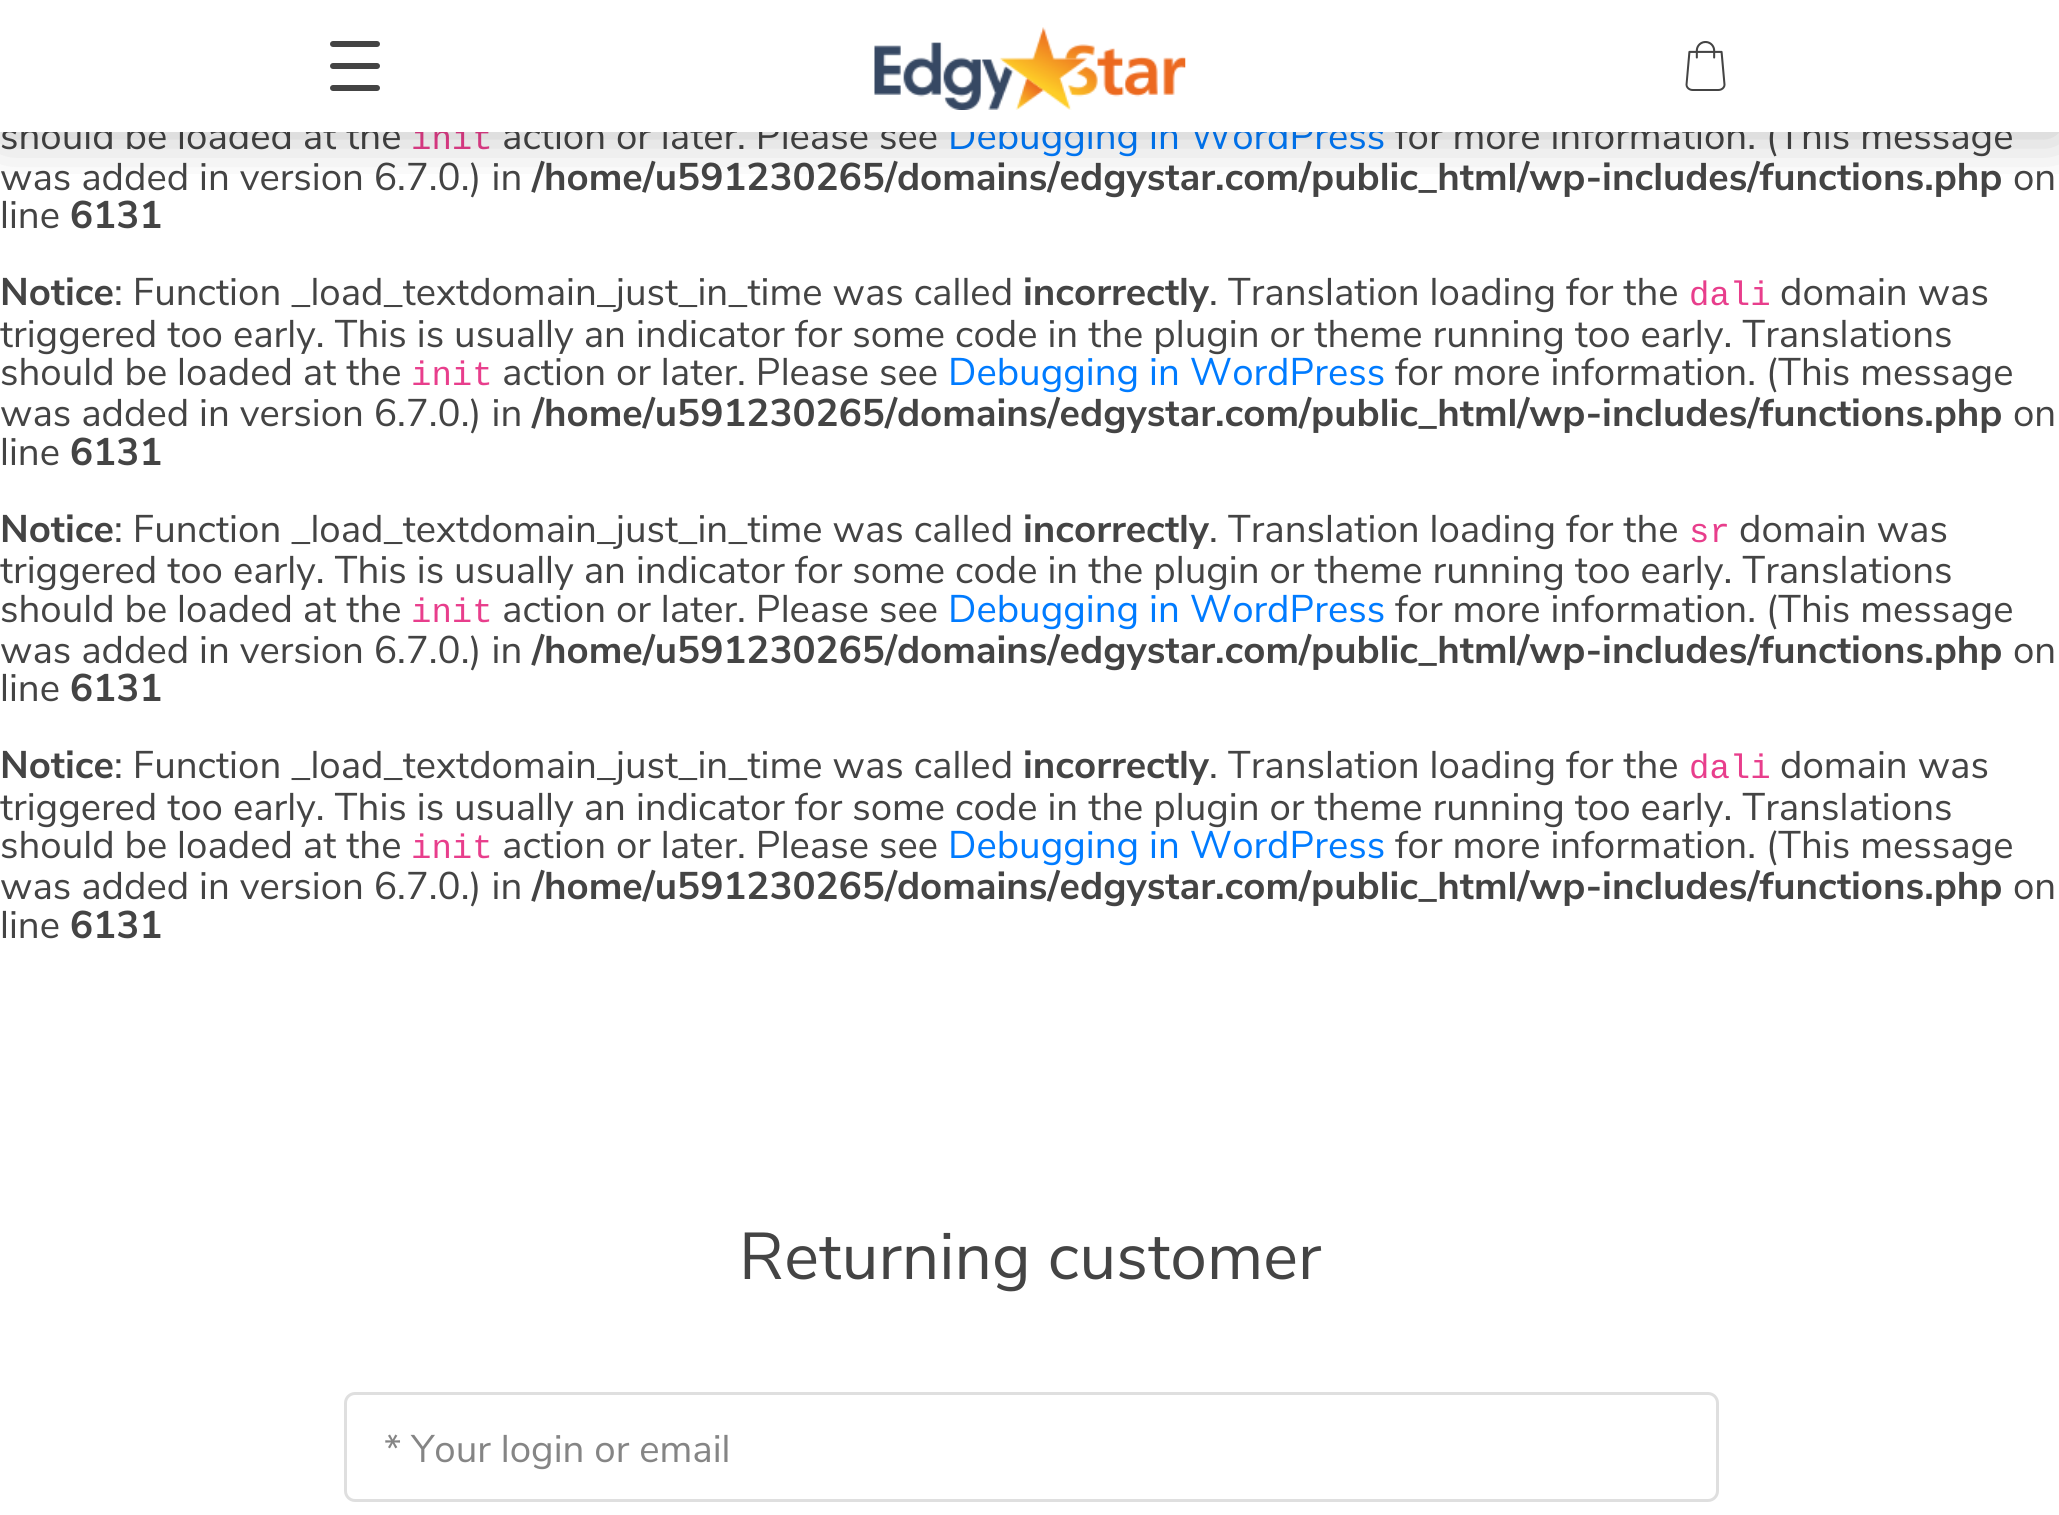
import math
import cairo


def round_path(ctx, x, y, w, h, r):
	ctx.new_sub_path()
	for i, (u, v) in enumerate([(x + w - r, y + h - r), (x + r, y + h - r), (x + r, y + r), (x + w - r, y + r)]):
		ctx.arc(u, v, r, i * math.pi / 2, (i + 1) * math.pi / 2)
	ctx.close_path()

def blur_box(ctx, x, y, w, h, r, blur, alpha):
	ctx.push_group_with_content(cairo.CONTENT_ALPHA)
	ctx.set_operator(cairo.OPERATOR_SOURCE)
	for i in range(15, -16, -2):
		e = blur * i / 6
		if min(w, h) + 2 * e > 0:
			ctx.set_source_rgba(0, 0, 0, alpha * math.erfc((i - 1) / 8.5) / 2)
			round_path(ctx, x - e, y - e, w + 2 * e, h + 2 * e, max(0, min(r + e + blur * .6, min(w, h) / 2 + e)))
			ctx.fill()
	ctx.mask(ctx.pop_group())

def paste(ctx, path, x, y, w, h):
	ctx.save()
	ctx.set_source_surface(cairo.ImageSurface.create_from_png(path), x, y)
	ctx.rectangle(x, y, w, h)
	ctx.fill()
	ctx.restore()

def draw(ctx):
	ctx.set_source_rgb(1, 1, 1)
	ctx.paint()
	ctx.select_font_face('Nunito Sans')
	ctx.set_font_size(38.5)
	ctx.set_source_rgb(0.267, 0.267, 0.267)
	ctx.move_to(0, 149)
	ctx.show_text('should be loaded at the')
	ctx.select_font_face('Liberation Mono')
	ctx.set_font_size(34)
	ctx.set_source_rgb(0.91, 0.243, 0.549)
	ctx.move_to(411, 149)
	ctx.show_text('init')
	ctx.select_font_face('Nunito Sans')
	ctx.set_font_size(38.5)
	ctx.set_source_rgb(0.267, 0.267, 0.267)
	ctx.move_to(502, 149)
	ctx.show_text('action or later. Please see')
	ctx.set_source_rgb(0, 0.482, 1)
	ctx.move_to(948, 149)
	ctx.show_text('Debugging in WordPress')
	ctx.set_source_rgb(0.267, 0.267, 0.267)
	ctx.move_to(1395, 149)
	ctx.show_text('for more information. (This message')
	ctx.move_to(0, 190)
	ctx.show_text('was added in version 6.7.0.) in')
	ctx.select_font_face('Nunito Sans', cairo.FONT_SLANT_NORMAL, cairo.FONT_WEIGHT_BOLD)
	ctx.move_to(532, 190)
	ctx.show_text('/home/u591230265/domains/edgystar.com/public_html/wp-includes/functions.php')
	ctx.select_font_face('Nunito Sans')
	ctx.move_to(2013, 190)
	ctx.show_text('on')
	ctx.move_to(0, 228)
	ctx.show_text('line')
	ctx.select_font_face('Nunito Sans', cairo.FONT_SLANT_NORMAL, cairo.FONT_WEIGHT_BOLD)
	ctx.move_to(70, 228)
	ctx.show_text('6131')
	ctx.move_to(0, 305)
	ctx.show_text('Notice')
	ctx.select_font_face('Nunito Sans')
	ctx.move_to(114, 305)
	ctx.show_text(': Function _load_textdomain_just_in_time was called')
	ctx.select_font_face('Nunito Sans', cairo.FONT_SLANT_NORMAL, cairo.FONT_WEIGHT_BOLD)
	ctx.move_to(1023, 305)
	ctx.show_text('incorrectly')
	ctx.select_font_face('Nunito Sans')
	ctx.move_to(1209, 305)
	ctx.show_text('. Translation loading for the')
	ctx.select_font_face('Liberation Mono')
	ctx.set_font_size(34)
	ctx.set_source_rgb(0.91, 0.243, 0.549)
	ctx.move_to(1689, 305)
	ctx.show_text('dali')
	ctx.select_font_face('Nunito Sans')
	ctx.set_font_size(38.5)
	ctx.set_source_rgb(0.267, 0.267, 0.267)
	for x, y, s in [
		(1780, 305, 'domain was'),
		(0, 347, 'triggered too early. This is usually an indicator for some code in the plugin or theme running too early. Translations'),
		(0, 385, 'should be loaded at the'),
	]:
		ctx.move_to(x, y)
		ctx.show_text(s)
	ctx.select_font_face('Liberation Mono')
	ctx.set_font_size(34)
	ctx.set_source_rgb(0.91, 0.243, 0.549)
	ctx.move_to(411, 385)
	ctx.show_text('init')
	ctx.select_font_face('Nunito Sans')
	ctx.set_font_size(38.5)
	ctx.set_source_rgb(0.267, 0.267, 0.267)
	ctx.move_to(502, 385)
	ctx.show_text('action or later. Please see')
	ctx.set_source_rgb(0, 0.482, 1)
	ctx.move_to(948, 385)
	ctx.show_text('Debugging in WordPress')
	ctx.set_source_rgb(0.267, 0.267, 0.267)
	ctx.move_to(1395, 385)
	ctx.show_text('for more information. (This message')
	ctx.move_to(0, 426)
	ctx.show_text('was added in version 6.7.0.) in')
	ctx.select_font_face('Nunito Sans', cairo.FONT_SLANT_NORMAL, cairo.FONT_WEIGHT_BOLD)
	ctx.move_to(532, 426)
	ctx.show_text('/home/u591230265/domains/edgystar.com/public_html/wp-includes/functions.php')
	ctx.select_font_face('Nunito Sans')
	ctx.move_to(2013, 426)
	ctx.show_text('on')
	ctx.move_to(0, 465)
	ctx.show_text('line')
	ctx.select_font_face('Nunito Sans', cairo.FONT_SLANT_NORMAL, cairo.FONT_WEIGHT_BOLD)
	ctx.move_to(70, 465)
	ctx.show_text('6131')
	ctx.move_to(0, 542)
	ctx.show_text('Notice')
	ctx.select_font_face('Nunito Sans')
	ctx.move_to(114, 542)
	ctx.show_text(': Function _load_textdomain_just_in_time was called')
	ctx.select_font_face('Nunito Sans', cairo.FONT_SLANT_NORMAL, cairo.FONT_WEIGHT_BOLD)
	ctx.move_to(1023, 542)
	ctx.show_text('incorrectly')
	ctx.select_font_face('Nunito Sans')
	ctx.move_to(1209, 542)
	ctx.show_text('. Translation loading for the')
	ctx.select_font_face('Liberation Mono')
	ctx.set_font_size(34)
	ctx.set_source_rgb(0.91, 0.243, 0.549)
	ctx.move_to(1689, 542)
	ctx.show_text('sr')
	ctx.select_font_face('Nunito Sans')
	ctx.set_font_size(38.5)
	ctx.set_source_rgb(0.267, 0.267, 0.267)
	for x, y, s in [
		(1739, 542, 'domain was'),
		(0, 583, 'triggered too early. This is usually an indicator for some code in the plugin or theme running too early. Translations'),
		(0, 622, 'should be loaded at the'),
	]:
		ctx.move_to(x, y)
		ctx.show_text(s)
	ctx.select_font_face('Liberation Mono')
	ctx.set_font_size(34)
	ctx.set_source_rgb(0.91, 0.243, 0.549)
	ctx.move_to(411, 622)
	ctx.show_text('init')
	ctx.select_font_face('Nunito Sans')
	ctx.set_font_size(38.5)
	ctx.set_source_rgb(0.267, 0.267, 0.267)
	ctx.move_to(502, 622)
	ctx.show_text('action or later. Please see')
	ctx.set_source_rgb(0, 0.482, 1)
	ctx.move_to(948, 622)
	ctx.show_text('Debugging in WordPress')
	ctx.set_source_rgb(0.267, 0.267, 0.267)
	ctx.move_to(1395, 622)
	ctx.show_text('for more information. (This message')
	ctx.move_to(0, 663)
	ctx.show_text('was added in version 6.7.0.) in')
	ctx.select_font_face('Nunito Sans', cairo.FONT_SLANT_NORMAL, cairo.FONT_WEIGHT_BOLD)
	ctx.move_to(532, 663)
	ctx.show_text('/home/u591230265/domains/edgystar.com/public_html/wp-includes/functions.php')
	ctx.select_font_face('Nunito Sans')
	ctx.move_to(2013, 663)
	ctx.show_text('on')
	ctx.move_to(0, 701)
	ctx.show_text('line')
	ctx.select_font_face('Nunito Sans', cairo.FONT_SLANT_NORMAL, cairo.FONT_WEIGHT_BOLD)
	ctx.move_to(70, 701)
	ctx.show_text('6131')
	ctx.move_to(0, 778)
	ctx.show_text('Notice')
	ctx.select_font_face('Nunito Sans')
	ctx.move_to(114, 778)
	ctx.show_text(': Function _load_textdomain_just_in_time was called')
	ctx.select_font_face('Nunito Sans', cairo.FONT_SLANT_NORMAL, cairo.FONT_WEIGHT_BOLD)
	ctx.move_to(1023, 778)
	ctx.show_text('incorrectly')
	ctx.select_font_face('Nunito Sans')
	ctx.move_to(1209, 778)
	ctx.show_text('. Translation loading for the')
	ctx.select_font_face('Liberation Mono')
	ctx.set_font_size(34)
	ctx.set_source_rgb(0.91, 0.243, 0.549)
	ctx.move_to(1689, 778)
	ctx.show_text('dali')
	ctx.select_font_face('Nunito Sans')
	ctx.set_font_size(38.5)
	ctx.set_source_rgb(0.267, 0.267, 0.267)
	for x, y, s in [
		(1780, 778, 'domain was'),
		(0, 820, 'triggered too early. This is usually an indicator for some code in the plugin or theme running too early. Translations'),
		(0, 858, 'should be loaded at the'),
	]:
		ctx.move_to(x, y)
		ctx.show_text(s)
	ctx.select_font_face('Liberation Mono')
	ctx.set_font_size(34)
	ctx.set_source_rgb(0.91, 0.243, 0.549)
	ctx.move_to(411, 858)
	ctx.show_text('init')
	ctx.select_font_face('Nunito Sans')
	ctx.set_font_size(38.5)
	ctx.set_source_rgb(0.267, 0.267, 0.267)
	ctx.move_to(502, 858)
	ctx.show_text('action or later. Please see')
	ctx.set_source_rgb(0, 0.482, 1)
	ctx.move_to(948, 858)
	ctx.show_text('Debugging in WordPress')
	ctx.set_source_rgb(0.267, 0.267, 0.267)
	ctx.move_to(1395, 858)
	ctx.show_text('for more information. (This message')
	ctx.move_to(0, 899)
	ctx.show_text('was added in version 6.7.0.) in')
	ctx.select_font_face('Nunito Sans', cairo.FONT_SLANT_NORMAL, cairo.FONT_WEIGHT_BOLD)
	ctx.move_to(532, 899)
	ctx.show_text('/home/u591230265/domains/edgystar.com/public_html/wp-includes/functions.php')
	ctx.select_font_face('Nunito Sans')
	ctx.move_to(2013, 899)
	ctx.show_text('on')
	ctx.move_to(0, 938)
	ctx.show_text('line')
	ctx.select_font_face('Nunito Sans', cairo.FONT_SLANT_NORMAL, cairo.FONT_WEIGHT_BOLD)
	ctx.move_to(70, 938)
	ctx.show_text('6131')
	ctx.set_source_rgb(1, 1, 1)
	ctx.rectangle(3, 121, 2007, 11)
	ctx.fill()
	ctx.save()
	ctx.rectangle(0, 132, 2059, 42)
	ctx.clip()
	ctx.set_source_rgb(0, 0, 0)
	blur_box(ctx, 0, 3, 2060, 132, 0, 27.5, 0.25)
	ctx.restore()
	ctx.set_source_rgb(0.267, 0.267, 0.267)
	round_path(ctx, 330, 41, 50, 6, 3)
	ctx.fill()
	round_path(ctx, 330, 63, 50, 6, 3)
	ctx.fill()
	round_path(ctx, 330, 85, 50, 6, 3)
	ctx.fill()
	paste(ctx, 'media/1.png', 874, 27, 312, 83)
	paste(ctx, 'media/2.png', 1685, 41, 41, 50)
	ctx.select_font_face('Nunito Sans')
	ctx.set_font_size(66)
	ctx.move_to(739, 1279)
	ctx.show_text('Returning customer')
	round_path(ctx, 345.5, 1393.5, 1372, 107, 9.5)
	ctx.set_source_rgb(0.875, 0.875, 0.875)
	ctx.set_line_width(3)
	ctx.stroke()
	ctx.set_font_size(38.5)
	ctx.set_source_rgb(0.522, 0.522, 0.522)
	ctx.move_to(384, 1462)
	ctx.show_text('* Your login or email')


surface = cairo.ImageSurface(cairo.FORMAT_RGB24, 2059, 1515)
ctx = cairo.Context(surface)
options = cairo.FontOptions()
options.set_hint_metrics(cairo.HINT_METRICS_OFF)
options.set_hint_style(cairo.HINT_STYLE_NONE)
ctx.set_font_options(options)
ctx.set_miter_limit(4)
draw(ctx)
surface.write_to_png('image.png')
